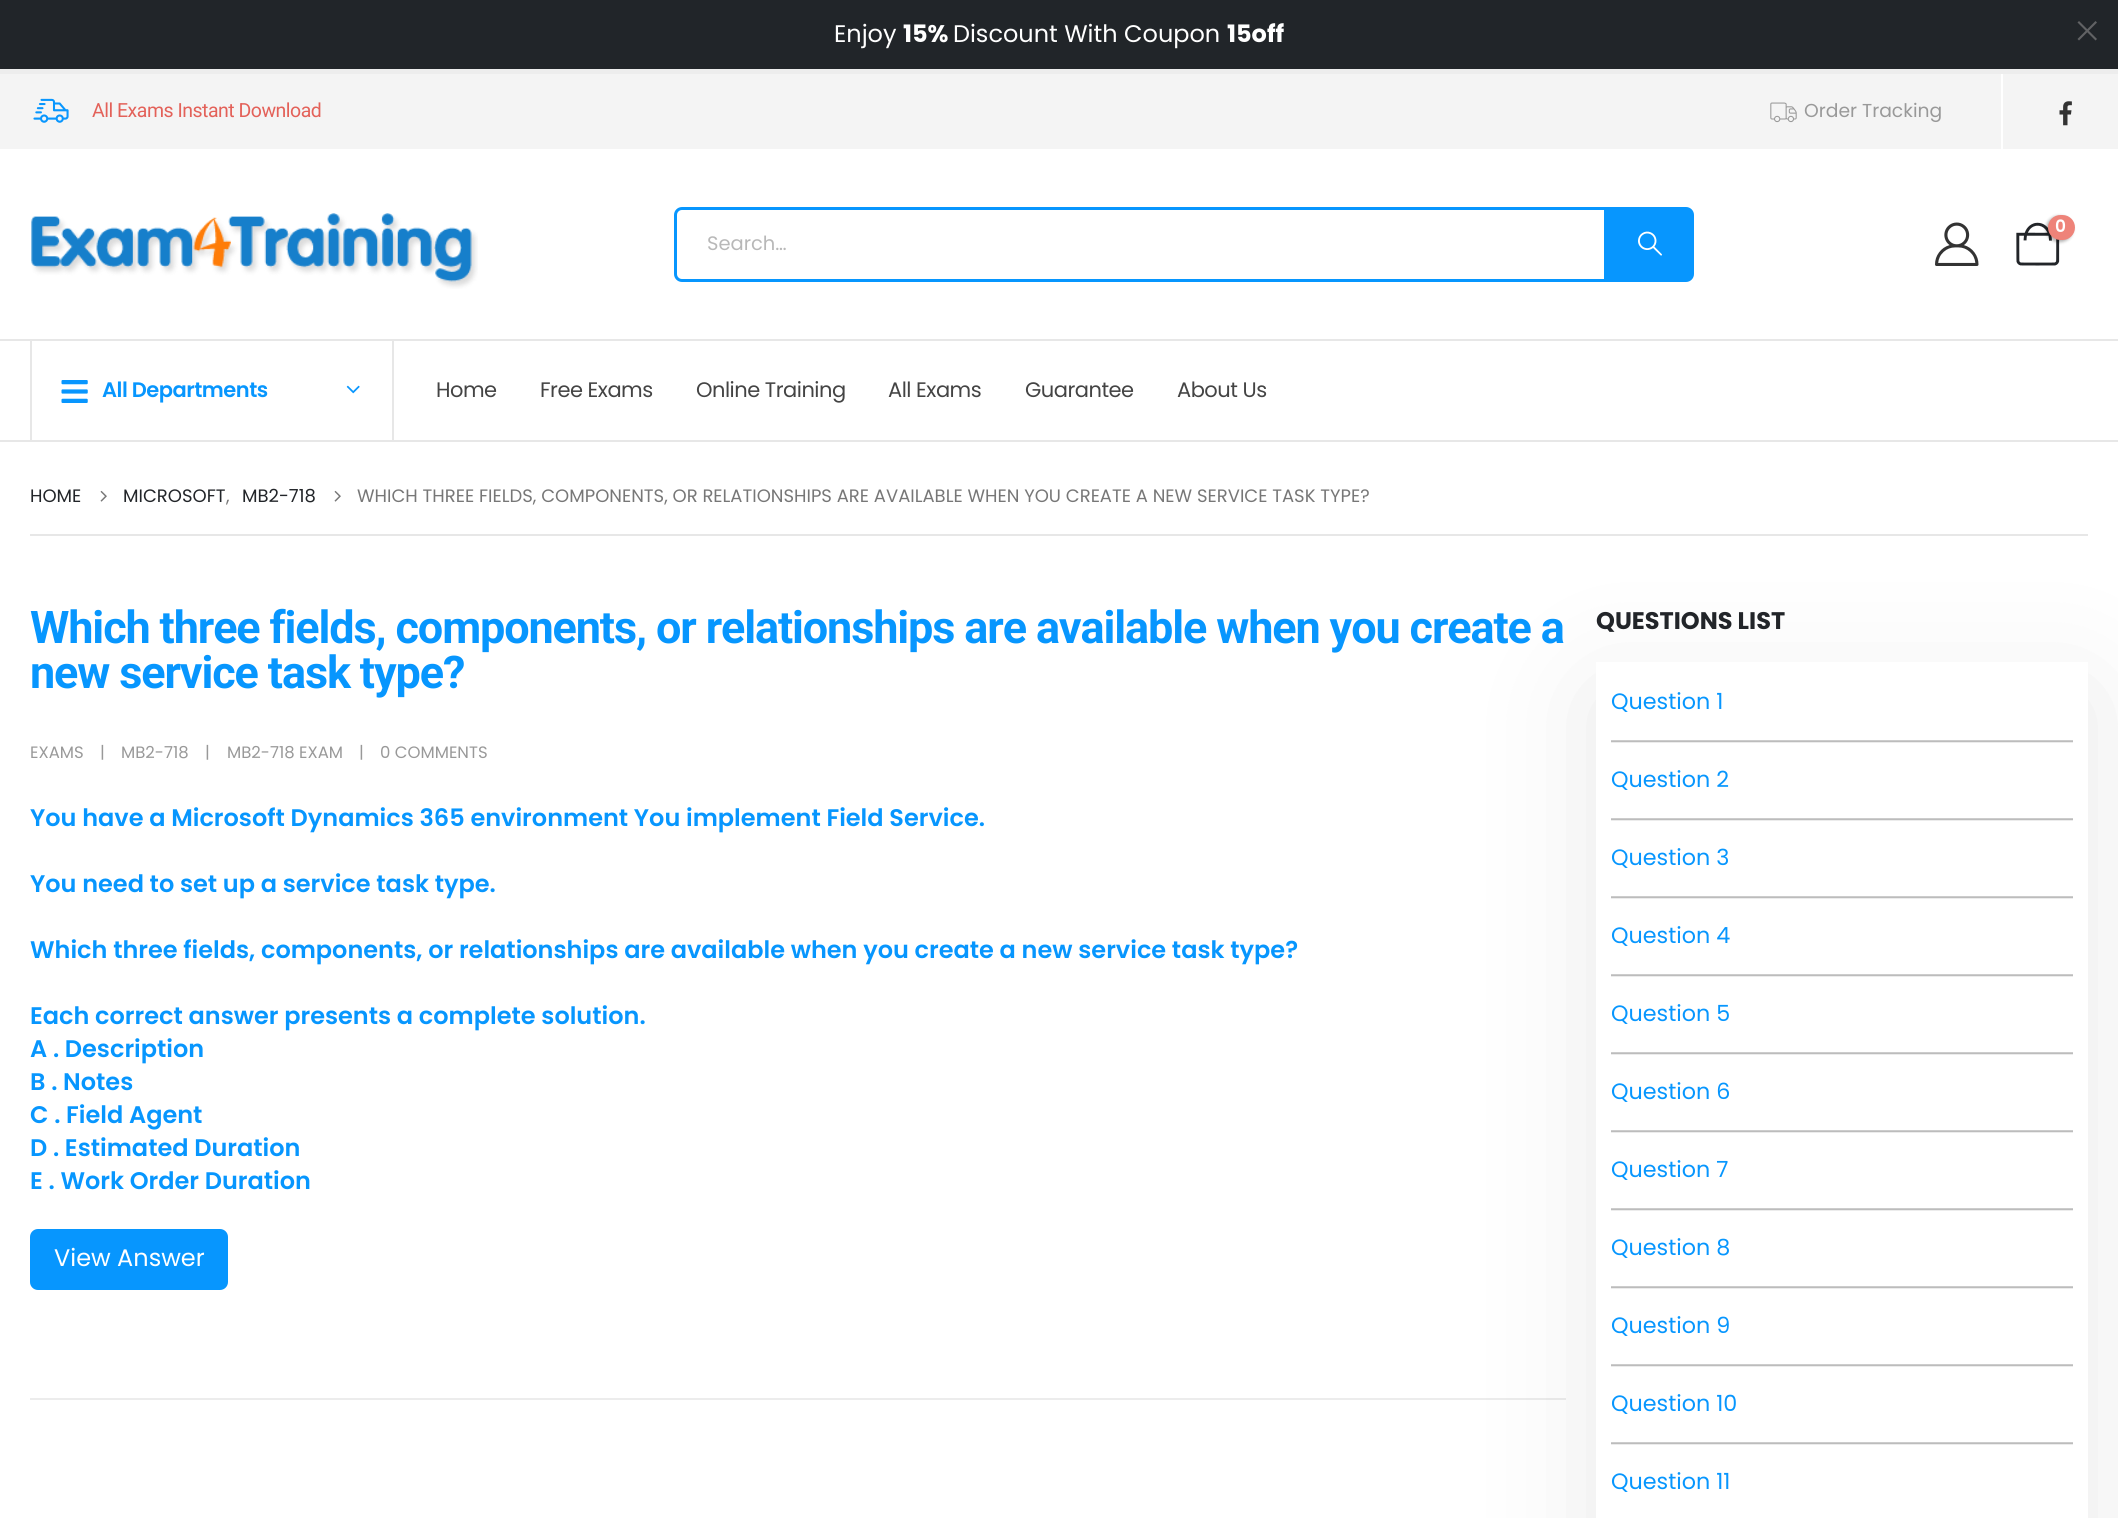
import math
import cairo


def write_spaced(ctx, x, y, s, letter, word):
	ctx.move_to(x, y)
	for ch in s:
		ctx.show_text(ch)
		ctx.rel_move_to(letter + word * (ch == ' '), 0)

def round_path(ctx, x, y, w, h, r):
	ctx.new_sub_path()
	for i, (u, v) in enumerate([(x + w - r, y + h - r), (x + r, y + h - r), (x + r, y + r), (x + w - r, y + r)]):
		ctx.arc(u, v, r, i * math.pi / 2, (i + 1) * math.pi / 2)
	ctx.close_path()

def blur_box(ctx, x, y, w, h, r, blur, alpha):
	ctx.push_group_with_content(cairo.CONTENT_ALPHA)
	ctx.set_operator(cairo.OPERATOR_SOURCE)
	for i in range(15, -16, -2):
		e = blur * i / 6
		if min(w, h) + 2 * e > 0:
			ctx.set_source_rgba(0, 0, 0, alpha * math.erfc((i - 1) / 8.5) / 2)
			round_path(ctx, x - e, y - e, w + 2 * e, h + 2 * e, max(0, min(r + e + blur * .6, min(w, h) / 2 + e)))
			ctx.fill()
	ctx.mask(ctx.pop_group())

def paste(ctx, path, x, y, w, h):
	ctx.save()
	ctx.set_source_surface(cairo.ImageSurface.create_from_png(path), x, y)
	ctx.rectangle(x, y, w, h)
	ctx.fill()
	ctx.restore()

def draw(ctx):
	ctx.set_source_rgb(1, 1, 1)
	ctx.paint()
	ctx.set_source_rgb(0.922, 0.922, 0.922)
	ctx.rectangle(1611, 1444, 462, 1)
	ctx.rectangle(1611, 1366, 462, 1)
	ctx.rectangle(1611, 1288, 462, 1)
	ctx.rectangle(1611, 1210, 462, 1)
	ctx.rectangle(1611, 1132, 462, 1)
	ctx.rectangle(1611, 1054, 462, 1)
	ctx.rectangle(1611, 976, 462, 1)
	ctx.rectangle(1611, 898, 462, 1)
	ctx.rectangle(1611, 820, 462, 1)
	ctx.rectangle(1611, 742, 462, 1)
	ctx.fill()
	ctx.set_source_rgb(0.129, 0.145, 0.161)
	ctx.rectangle(0, 0, 2118, 69)
	ctx.fill()
	ctx.select_font_face('Poppins')
	ctx.set_font_size(24)
	ctx.set_source_rgb(1, 1, 1)
	ctx.move_to(834, 42)
	ctx.show_text('Enjoy')
	ctx.select_font_face('Poppins', cairo.FONT_SLANT_NORMAL, cairo.FONT_WEIGHT_BOLD)
	ctx.move_to(903, 42)
	ctx.show_text('15%')
	ctx.select_font_face('Poppins')
	ctx.move_to(953, 42)
	ctx.show_text('Discount With Coupon')
	ctx.select_font_face('Poppins', cairo.FONT_SLANT_NORMAL, cairo.FONT_WEIGHT_BOLD)
	ctx.move_to(1227, 42)
	ctx.show_text('15off')
	ctx.set_source_rgb(0.38, 0.384, 0.392)
	ctx.new_path()
	ctx.move_to(2079, 21)
	ctx.line_to(2097, 39)
	ctx.line_to(2095.5, 40.5)
	ctx.line_to(2077.5, 22.5)
	ctx.close_path()
	ctx.fill()
	ctx.new_path()
	ctx.move_to(2095.5, 21)
	ctx.line_to(2097, 22.5)
	ctx.line_to(2079, 40.5)
	ctx.line_to(2077.5, 39)
	ctx.close_path()
	ctx.fill()
	ctx.set_source_rgb(0.929, 0.929, 0.929)
	ctx.rectangle(0, 69, 2118, 5)
	ctx.fill()
	ctx.set_source_rgb(0.957, 0.957, 0.957)
	ctx.rectangle(0, 74, 2118, 75)
	ctx.fill()
	paste(ctx, 'media/1.png', 33, 98, 36, 25)
	ctx.select_font_face('Roboto')
	ctx.set_font_size(19.5)
	ctx.set_source_rgb(0.89, 0.38, 0.349)
	write_spaced(ctx, 92, 117, 'All Exams Instant Download', -0.5, 0)
	paste(ctx, 'media/2.png', 1770, 102, 27, 21)
	ctx.select_font_face('Poppins')
	ctx.set_font_size(18.75)
	ctx.set_source_rgb(0.6, 0.6, 0.6)
	ctx.move_to(1804, 117)
	ctx.show_text('Order Tracking')
	ctx.set_source_rgb(1, 1, 1)
	ctx.rectangle(2001, 74, 2, 75)
	ctx.fill()
	paste(ctx, 'media/3.png', 2059, 101, 13, 25)
	ctx.set_source_rgb(0.906, 0.906, 0.906)
	ctx.rectangle(0, 339, 2118, 2)
	ctx.fill()
	paste(ctx, 'media/4.png', 31, 213, 447, 76)
	round_path(ctx, 675.5, 208.5, 1017, 72, 6.5)
	ctx.set_source_rgb(0.031, 0.588, 0.996)
	ctx.set_line_width(3)
	ctx.stroke()
	ctx.set_font_size(19.5)
	ctx.set_source_rgb(0.722, 0.722, 0.722)
	ctx.move_to(707, 250)
	ctx.show_text('Search…')
	ctx.set_source_rgb(0.031, 0.588, 0.996)
	ctx.rectangle(1604, 210, 87, 69)
	ctx.fill()
	paste(ctx, 'media/5.png', 1638, 231, 24, 25)
	paste(ctx, 'media/6.png', 1935, 222, 44, 44)
	paste(ctx, 'media/7.png', 2016, 222, 44, 44)
	ctx.set_source_rgb(0, 0, 0)
	blur_box(ctx, 2046, 216, 27, 26, 13, 1.5, 0.3)
	ctx.set_source_rgb(0.933, 0.514, 0.475)
	round_path(ctx, 2048, 215, 27, 25, 12.5)
	ctx.fill()
	ctx.select_font_face('Poppins SemiBold')
	ctx.set_font_size(17)
	ctx.set_source_rgb(1, 1, 1)
	ctx.move_to(2055, 232)
	ctx.show_text('0')
	ctx.set_source_rgb(0.906, 0.906, 0.906)
	ctx.rectangle(392, 341, 2, 99)
	ctx.fill()
	ctx.rectangle(30, 341, 2, 99)
	ctx.fill()
	paste(ctx, 'media/8.png', 61, 380, 27, 23)
	ctx.set_font_size(21)
	ctx.set_source_rgb(0.031, 0.588, 0.996)
	write_spaced(ctx, 102, 397, 'All Departments', -0.5, 0)
	paste(ctx, 'media/9.png', 346, 385, 14, 9)
	ctx.select_font_face('Poppins')
	ctx.set_source_rgb(0.267, 0.267, 0.267)
	for x, y, s in [
		(436, 397, 'Home'),
		(540, 397, 'Free Exams'),
		(696, 397, 'Online Training'),
		(888, 397, 'All Exams'),
		(1025, 397, 'Guarantee'),
		(1177, 397, 'About Us'),
	]:
		write_spaced(ctx, x, y, s, -0.5, 0)
	ctx.set_source_rgb(0.906, 0.906, 0.906)
	ctx.rectangle(0, 440, 2118, 2)
	ctx.fill()
	ctx.set_font_size(18)
	ctx.set_source_rgb(0.133, 0.145, 0.161)
	ctx.move_to(30, 502)
	ctx.show_text('HOME')
	paste(ctx, 'media/10.png', 100, 490, 7, 12)
	ctx.move_to(123, 502)
	ctx.show_text('MICROSOFT')
	ctx.set_source_rgb(0.467, 0.467, 0.467)
	ctx.move_to(226, 502)
	ctx.show_text(',')
	ctx.set_source_rgb(0.133, 0.145, 0.161)
	ctx.move_to(242, 502)
	ctx.show_text('MB2-718')
	paste(ctx, 'media/10.png', 334, 490, 7, 12)
	ctx.set_source_rgb(0.467, 0.467, 0.467)
	ctx.move_to(357, 502)
	ctx.show_text('WHICH THREE FIELDS, COMPONENTS, OR RELATIONSHIPS ARE AVAILABLE WHEN YOU CREATE A NEW SERVICE TASK TYPE?')
	ctx.set_source_rgb(0.906, 0.906, 0.906)
	ctx.rectangle(30, 534, 2058, 2)
	ctx.fill()
	ctx.select_font_face('Roboto', cairo.FONT_SLANT_NORMAL, cairo.FONT_WEIGHT_BOLD)
	ctx.set_font_size(45)
	ctx.set_source_rgb(0.031, 0.588, 0.996)
	write_spaced(ctx, 30, 643, 'Which three fields, components, or relationships are available when you create a', -1.12, 0)
	write_spaced(ctx, 30, 688, 'new service task type?', -1.12, 0)
	ctx.select_font_face('Poppins')
	ctx.set_font_size(16.5)
	ctx.set_source_rgb(0.6, 0.6, 0.6)
	for x, y, s in [
		(30, 758, 'EXAMS'),
		(100, 758, '|'),
		(121, 758, 'MB2-718'),
		(205, 758, '|'),
		(227, 758, 'MB2-718 EXAM'),
		(359, 758, '|'),
		(380, 758, '0 COMMENTS'),
	]:
		ctx.move_to(x, y)
		ctx.show_text(s)
	ctx.select_font_face('Poppins SemiBold')
	ctx.set_font_size(24)
	ctx.set_source_rgb(0.031, 0.588, 0.996)
	for x, y, s in [
		(30, 826, 'You have a Microsoft Dynamics 365 environment You implement Field Service.'),
		(30, 892, 'You need to set up a service task type.'),
		(30, 958, 'Which three fields, components, or relationships are available when you create a new service task type?'),
		(30, 1024, 'Each correct answer presents a complete solution.'),
		(30, 1057, 'A . Description'),
		(30, 1090, 'B . Notes'),
		(30, 1123, 'C . Field Agent'),
		(30, 1156, 'D . Estimated Duration'),
		(30, 1189, 'E . Work Order Duration'),
	]:
		ctx.move_to(x, y)
		ctx.show_text(s)
	round_path(ctx, 30, 1229, 198, 61, 8)
	ctx.fill()
	ctx.select_font_face('Poppins')
	ctx.set_source_rgb(1, 1, 1)
	ctx.move_to(54, 1266)
	ctx.show_text('View Answer')
	ctx.set_source_rgb(0.922, 0.922, 0.922)
	ctx.rectangle(30, 1398, 1536, 2)
	ctx.fill()
	ctx.save()
	ctx.set_fill_rule(cairo.FILL_RULE_EVEN_ODD)
	ctx.new_path()
	ctx.move_to(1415, 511)
	ctx.line_to(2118, 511)
	ctx.line_to(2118, 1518)
	ctx.line_to(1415, 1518)
	ctx.close_path()
	ctx.move_to(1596, 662)
	ctx.line_to(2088, 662)
	ctx.line_to(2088, 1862)
	ctx.line_to(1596, 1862)
	ctx.close_path()
	ctx.clip()
	ctx.set_source_rgb(0, 0, 0)
	blur_box(ctx, 1596, 692, 492, 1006, 0, 60, 0.09)
	ctx.restore()
	ctx.select_font_face('Poppins', cairo.FONT_SLANT_NORMAL, cairo.FONT_WEIGHT_BOLD)
	ctx.set_source_rgb(0.133, 0.145, 0.161)
	ctx.move_to(1596, 629)
	ctx.show_text('QUESTIONS LIST')
	ctx.set_source_rgb(0.8, 0.8, 0.8)
	ctx.rectangle(1611, 740, 462, 1)
	ctx.fill()
	ctx.set_source_rgb(0.737, 0.737, 0.737)
	ctx.rectangle(1611, 741, 462, 1)
	ctx.fill()
	ctx.select_font_face('Poppins')
	ctx.set_font_size(22.25)
	ctx.set_source_rgb(0.031, 0.588, 0.996)
	ctx.move_to(1611, 709)
	ctx.show_text('Question 1')
	ctx.set_source_rgb(0.8, 0.8, 0.8)
	ctx.rectangle(1611, 818, 462, 1)
	ctx.fill()
	ctx.set_source_rgb(0.737, 0.737, 0.737)
	ctx.rectangle(1611, 819, 462, 1)
	ctx.fill()
	ctx.set_source_rgb(0.031, 0.588, 0.996)
	ctx.move_to(1611, 787)
	ctx.show_text('Question 2')
	ctx.set_source_rgb(0.8, 0.8, 0.8)
	ctx.rectangle(1611, 896, 462, 1)
	ctx.fill()
	ctx.set_source_rgb(0.737, 0.737, 0.737)
	ctx.rectangle(1611, 897, 462, 1)
	ctx.fill()
	ctx.set_source_rgb(0.031, 0.588, 0.996)
	ctx.move_to(1611, 865)
	ctx.show_text('Question 3')
	ctx.set_source_rgb(0.8, 0.8, 0.8)
	ctx.rectangle(1611, 974, 462, 1)
	ctx.fill()
	ctx.set_source_rgb(0.737, 0.737, 0.737)
	ctx.rectangle(1611, 975, 462, 1)
	ctx.fill()
	ctx.set_source_rgb(0.031, 0.588, 0.996)
	ctx.move_to(1611, 943)
	ctx.show_text('Question 4')
	ctx.set_source_rgb(0.8, 0.8, 0.8)
	ctx.rectangle(1611, 1052, 462, 1)
	ctx.fill()
	ctx.set_source_rgb(0.737, 0.737, 0.737)
	ctx.rectangle(1611, 1053, 462, 1)
	ctx.fill()
	ctx.set_source_rgb(0.031, 0.588, 0.996)
	ctx.move_to(1611, 1021)
	ctx.show_text('Question 5')
	ctx.set_source_rgb(0.8, 0.8, 0.8)
	ctx.rectangle(1611, 1130, 462, 1)
	ctx.fill()
	ctx.set_source_rgb(0.737, 0.737, 0.737)
	ctx.rectangle(1611, 1131, 462, 1)
	ctx.fill()
	ctx.set_source_rgb(0.031, 0.588, 0.996)
	ctx.move_to(1611, 1099)
	ctx.show_text('Question 6')
	ctx.set_source_rgb(0.8, 0.8, 0.8)
	ctx.rectangle(1611, 1208, 462, 1)
	ctx.fill()
	ctx.set_source_rgb(0.737, 0.737, 0.737)
	ctx.rectangle(1611, 1209, 462, 1)
	ctx.fill()
	ctx.set_source_rgb(0.031, 0.588, 0.996)
	ctx.move_to(1611, 1177)
	ctx.show_text('Question 7')
	ctx.set_source_rgb(0.8, 0.8, 0.8)
	ctx.rectangle(1611, 1286, 462, 1)
	ctx.fill()
	ctx.set_source_rgb(0.737, 0.737, 0.737)
	ctx.rectangle(1611, 1287, 462, 1)
	ctx.fill()
	ctx.set_source_rgb(0.031, 0.588, 0.996)
	ctx.move_to(1611, 1255)
	ctx.show_text('Question 8')
	ctx.set_source_rgb(0.8, 0.8, 0.8)
	ctx.rectangle(1611, 1364, 462, 1)
	ctx.fill()
	ctx.set_source_rgb(0.737, 0.737, 0.737)
	ctx.rectangle(1611, 1365, 462, 1)
	ctx.fill()
	ctx.set_source_rgb(0.031, 0.588, 0.996)
	ctx.move_to(1611, 1333)
	ctx.show_text('Question 9')
	ctx.set_source_rgb(0.8, 0.8, 0.8)
	ctx.rectangle(1611, 1442, 462, 1)
	ctx.fill()
	ctx.set_source_rgb(0.737, 0.737, 0.737)
	ctx.rectangle(1611, 1443, 462, 1)
	ctx.fill()
	ctx.set_source_rgb(0.031, 0.588, 0.996)
	ctx.move_to(1611, 1411)
	ctx.show_text('Question 10')
	ctx.move_to(1611, 1489)
	ctx.show_text('Question 11')


surface = cairo.ImageSurface(cairo.FORMAT_RGB24, 2118, 1518)
ctx = cairo.Context(surface)
options = cairo.FontOptions()
options.set_hint_metrics(cairo.HINT_METRICS_OFF)
options.set_hint_style(cairo.HINT_STYLE_NONE)
ctx.set_font_options(options)
ctx.set_miter_limit(4)
draw(ctx)
surface.write_to_png('image.png')
